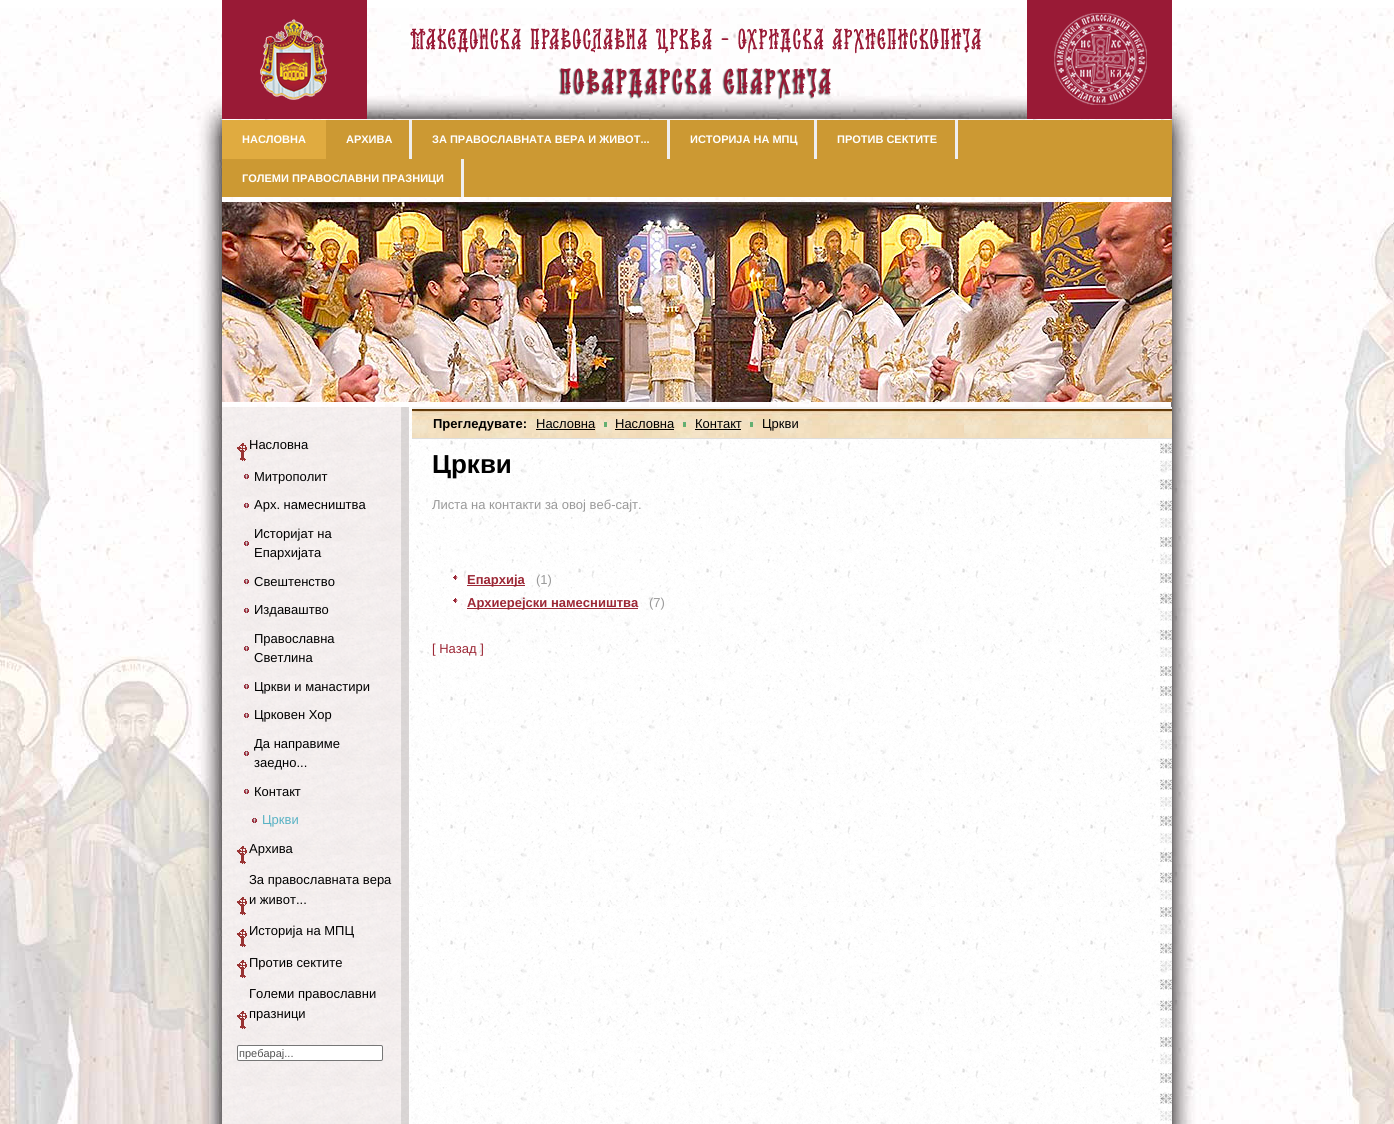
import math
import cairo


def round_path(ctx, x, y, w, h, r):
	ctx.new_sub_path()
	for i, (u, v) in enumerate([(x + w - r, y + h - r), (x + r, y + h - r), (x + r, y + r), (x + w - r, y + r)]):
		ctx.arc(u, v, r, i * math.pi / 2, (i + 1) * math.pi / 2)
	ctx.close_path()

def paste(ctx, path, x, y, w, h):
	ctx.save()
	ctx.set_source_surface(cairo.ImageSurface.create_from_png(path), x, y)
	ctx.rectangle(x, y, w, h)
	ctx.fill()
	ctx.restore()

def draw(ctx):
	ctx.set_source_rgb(1, 1, 1)
	ctx.paint()
	paste(ctx, 'media/1.png', 0, 8, 1394, 1116)
	paste(ctx, 'media/2.png', 222, 0, 950, 119)
	ctx.set_source_rgb(0.8, 0.6, 0.2)
	ctx.rectangle(222, 120, 950, 77)
	ctx.fill()
	ctx.set_source_rgb(0.878, 0.671, 0.251)
	ctx.rectangle(222, 120, 104, 39)
	ctx.fill()
	ctx.select_font_face('Liberation Sans', cairo.FONT_SLANT_NORMAL, cairo.FONT_WEIGHT_BOLD)
	ctx.set_font_size(11)
	ctx.set_source_rgb(1, 1, 1)
	ctx.move_to(242, 143)
	ctx.show_text('НАСЛОВНА')
	ctx.set_source_rgb(0.937, 0.937, 0.937)
	ctx.rectangle(409, 120, 3, 39)
	ctx.fill()
	ctx.set_source_rgb(1, 1, 1)
	ctx.move_to(346, 143)
	ctx.show_text('АРХИВА')
	ctx.set_source_rgb(0.937, 0.937, 0.937)
	ctx.rectangle(667, 120, 3, 39)
	ctx.fill()
	ctx.set_source_rgb(1, 1, 1)
	ctx.move_to(432, 143)
	ctx.show_text('ЗА ПРАВОСЛАВНАТА ВЕРА И ЖИВОТ...')
	ctx.set_source_rgb(0.937, 0.937, 0.937)
	ctx.rectangle(814, 120, 3, 39)
	ctx.fill()
	ctx.set_source_rgb(1, 1, 1)
	ctx.move_to(690, 143)
	ctx.show_text('ИСТОРИЈА НА МПЦ')
	ctx.set_source_rgb(0.937, 0.937, 0.937)
	ctx.rectangle(955, 120, 3, 39)
	ctx.fill()
	ctx.set_source_rgb(1, 1, 1)
	ctx.move_to(837, 143)
	ctx.show_text('ПРОТИВ СЕКТИТЕ')
	ctx.set_source_rgb(0.937, 0.937, 0.937)
	ctx.rectangle(461, 159, 3, 38)
	ctx.fill()
	ctx.set_source_rgb(1, 1, 1)
	ctx.move_to(242, 182)
	ctx.show_text('ГОЛЕМИ ПРАВОСЛАВНИ ПРАЗНИЦИ')
	paste(ctx, 'media/3.png', 222, 202, 950, 200)
	paste(ctx, 'media/4.png', 222, 407, 950, 717)
	paste(ctx, 'media/5.png', 237, 443, 10, 18)
	ctx.select_font_face('Liberation Sans')
	ctx.set_font_size(13)
	ctx.set_source_rgb(0, 0, 0)
	ctx.move_to(249, 449)
	ctx.show_text('Насловна')
	paste(ctx, 'media/6.png', 244, 474, 5, 5)
	ctx.move_to(254, 481)
	ctx.show_text('Митрополит')
	paste(ctx, 'media/7.png', 244, 503, 5, 5)
	ctx.move_to(254, 509)
	ctx.show_text('Арх. намесништва')
	paste(ctx, 'media/8.png', 244, 541, 5, 5)
	ctx.move_to(254, 538)
	ctx.show_text('Историјат на')
	ctx.move_to(254, 557)
	ctx.show_text('Епархијата')
	paste(ctx, 'media/9.png', 244, 579, 5, 5)
	ctx.move_to(254, 586)
	ctx.show_text('Свештенство')
	paste(ctx, 'media/10.png', 244, 608, 5, 5)
	ctx.move_to(254, 614)
	ctx.show_text('Издаваштво')
	paste(ctx, 'media/11.png', 244, 646, 5, 5)
	ctx.move_to(254, 643)
	ctx.show_text('Православна')
	ctx.move_to(254, 662)
	ctx.show_text('Светлина')
	paste(ctx, 'media/12.png', 244, 684, 5, 5)
	ctx.move_to(254, 691)
	ctx.show_text('Цркви и манастири')
	paste(ctx, 'media/13.png', 244, 713, 5, 5)
	ctx.move_to(254, 719)
	ctx.show_text('Црковен Хор')
	paste(ctx, 'media/14.png', 244, 751, 5, 5)
	ctx.move_to(254, 748)
	ctx.show_text('Да направиме')
	ctx.move_to(254, 767)
	ctx.show_text('заедно...')
	paste(ctx, 'media/15.png', 244, 789, 5, 5)
	ctx.move_to(254, 796)
	ctx.show_text('Контакт')
	paste(ctx, 'media/16.png', 252, 818, 5, 5)
	ctx.set_source_rgb(0.349, 0.698, 0.769)
	ctx.move_to(262, 824)
	ctx.show_text('Цркви')
	paste(ctx, 'media/17.png', 237, 846, 10, 18)
	ctx.set_source_rgb(0, 0, 0)
	ctx.move_to(249, 853)
	ctx.show_text('Архива')
	paste(ctx, 'media/18.png', 237, 897, 10, 18)
	ctx.move_to(249, 884)
	ctx.show_text('За православната вера')
	ctx.move_to(249, 904)
	ctx.show_text('и живот...')
	paste(ctx, 'media/19.png', 237, 929, 10, 18)
	ctx.move_to(249, 935)
	ctx.show_text('Историја на МПЦ')
	paste(ctx, 'media/20.png', 237, 960, 10, 18)
	ctx.move_to(249, 967)
	ctx.show_text('Против сектите')
	paste(ctx, 'media/21.png', 237, 1011, 10, 18)
	ctx.move_to(249, 998)
	ctx.show_text('Големи православни')
	ctx.move_to(249, 1018)
	ctx.show_text('празници')
	ctx.set_source_rgb(1, 1, 1)
	round_path(ctx, 237.5, 1045.5, 145, 15, 1.5)
	ctx.fill_preserve()
	ctx.set_source_rgb(0.463, 0.463, 0.463)
	ctx.set_line_width(1)
	ctx.stroke()
	ctx.save()
	ctx.rectangle(239, 1047, 142, 12)
	ctx.clip()
	ctx.set_font_size(11)
	ctx.set_source_rgb(0.329, 0.329, 0.329)
	ctx.move_to(239, 1057)
	ctx.show_text('пребарај...')
	ctx.restore()
	paste(ctx, 'media/22.png', 412, 409, 760, 29)
	ctx.set_source_rgb(0.949, 0.949, 0.949)
	ctx.rectangle(412, 407, 760, 2)
	ctx.fill()
	ctx.set_source_rgb(0.867, 0.867, 0.867)
	ctx.rectangle(412, 438, 760, 1)
	ctx.fill()
	ctx.select_font_face('Liberation Sans', cairo.FONT_SLANT_NORMAL, cairo.FONT_WEIGHT_BOLD)
	ctx.set_source_rgb(0, 0, 0)
	ctx.move_to(433, 428)
	ctx.show_text('Прегледувате:')
	ctx.select_font_face('Liberation Sans')
	ctx.move_to(536, 428)
	ctx.show_text('Насловна')
	ctx.rectangle(536, 429, 59, 1)
	ctx.fill()
	ctx.set_source_rgb(0.388, 0.686, 0.443)
	ctx.rectangle(604, 422, 3, 5)
	ctx.fill()
	ctx.set_source_rgb(0, 0, 0)
	ctx.move_to(615, 428)
	ctx.show_text('Насловна')
	ctx.rectangle(615, 429, 59, 1)
	ctx.fill()
	ctx.set_source_rgb(0.388, 0.686, 0.443)
	ctx.rectangle(683, 422, 3, 5)
	ctx.fill()
	ctx.set_source_rgb(0, 0, 0)
	ctx.move_to(695, 428)
	ctx.show_text('Контакт')
	ctx.rectangle(695, 429, 46, 1)
	ctx.fill()
	ctx.set_source_rgb(0.388, 0.686, 0.443)
	ctx.rectangle(750, 422, 3, 5)
	ctx.fill()
	ctx.set_source_rgb(0, 0, 0)
	ctx.move_to(762, 428)
	ctx.show_text('Цркви')
	ctx.select_font_face('Liberation Sans', cairo.FONT_SLANT_NORMAL, cairo.FONT_WEIGHT_BOLD)
	ctx.set_font_size(26)
	ctx.move_to(432, 473)
	ctx.show_text('Цркви')
	ctx.select_font_face('Liberation Sans')
	ctx.set_font_size(13)
	ctx.set_source_rgb(0.6, 0.6, 0.6)
	ctx.move_to(432, 509)
	ctx.show_text('Листа на контакти за овој веб-сајт.')
	paste(ctx, 'media/23.png', 453, 575, 5, 5)
	ctx.set_source_rgb(0.612, 0.153, 0.208)
	ctx.rectangle(467, 585, 58, 1)
	ctx.fill()
	ctx.select_font_face('Liberation Sans', cairo.FONT_SLANT_NORMAL, cairo.FONT_WEIGHT_BOLD)
	ctx.move_to(467, 584)
	ctx.show_text('Епархија')
	ctx.select_font_face('Liberation Sans')
	ctx.set_source_rgb(0.6, 0.6, 0.6)
	ctx.move_to(536, 584)
	ctx.show_text('(1)')
	paste(ctx, 'media/24.png', 453, 598, 5, 5)
	ctx.set_source_rgb(0.612, 0.153, 0.208)
	ctx.rectangle(467, 608, 171, 1)
	ctx.fill()
	ctx.select_font_face('Liberation Sans', cairo.FONT_SLANT_NORMAL, cairo.FONT_WEIGHT_BOLD)
	ctx.move_to(467, 607)
	ctx.show_text('Архиерејски намесништва')
	ctx.select_font_face('Liberation Sans')
	ctx.set_source_rgb(0.6, 0.6, 0.6)
	ctx.move_to(649, 607)
	ctx.show_text('(7)')
	ctx.set_source_rgb(0.612, 0.153, 0.208)
	ctx.move_to(432, 653)
	ctx.show_text('[ Назад ]')


surface = cairo.ImageSurface(cairo.FORMAT_RGB24, 1394, 1124)
ctx = cairo.Context(surface)
options = cairo.FontOptions()
options.set_hint_metrics(cairo.HINT_METRICS_OFF)
options.set_hint_style(cairo.HINT_STYLE_NONE)
ctx.set_font_options(options)
ctx.set_miter_limit(4)
draw(ctx)
surface.write_to_png('image.png')
